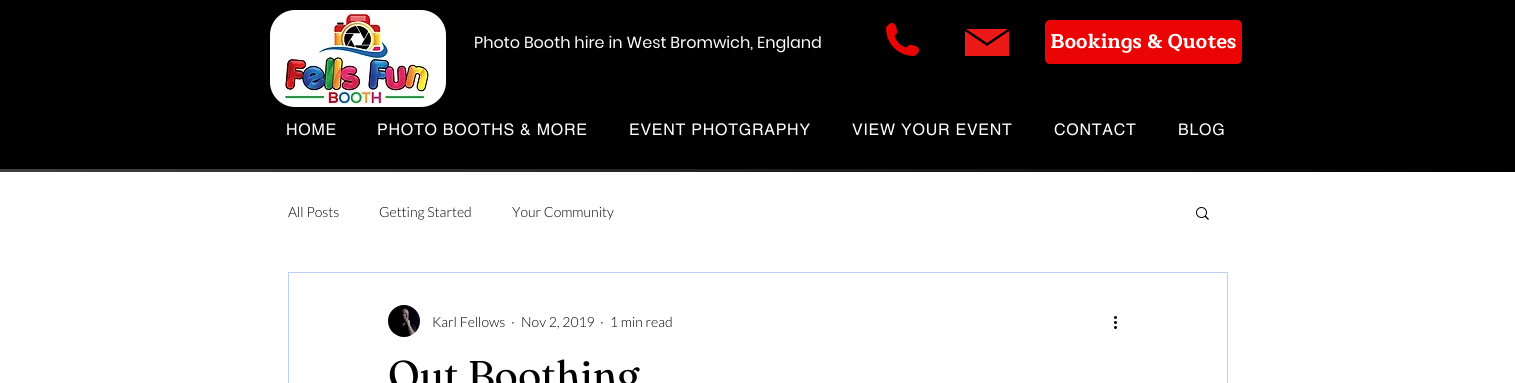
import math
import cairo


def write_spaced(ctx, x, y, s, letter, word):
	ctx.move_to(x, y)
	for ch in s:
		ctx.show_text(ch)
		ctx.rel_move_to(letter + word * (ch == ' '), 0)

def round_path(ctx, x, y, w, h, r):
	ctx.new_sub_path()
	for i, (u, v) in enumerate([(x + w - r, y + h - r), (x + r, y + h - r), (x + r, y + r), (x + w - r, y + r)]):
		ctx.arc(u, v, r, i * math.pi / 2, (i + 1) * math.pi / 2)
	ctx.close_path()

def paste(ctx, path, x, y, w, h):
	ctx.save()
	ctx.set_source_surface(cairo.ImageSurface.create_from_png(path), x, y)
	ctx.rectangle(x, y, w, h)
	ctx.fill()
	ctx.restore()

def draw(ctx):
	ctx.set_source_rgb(1, 1, 1)
	ctx.paint()
	ctx.set_source_rgb(0, 0, 0)
	ctx.rectangle(0, 0, 1515, 169)
	ctx.fill()
	ctx.set_source_rgb(1, 1, 1)
	round_path(ctx, 271, 11, 174, 95, 24)
	ctx.fill_preserve()
	ctx.stroke()
	paste(ctx, 'media/1.png', 280, 12, 152, 93)
	ctx.select_font_face('Poppins')
	ctx.set_font_size(16)
	ctx.move_to(474, 48)
	ctx.show_text('Photo Booth hire in West Bromwich, England')
	paste(ctx, 'media/2.png', 886, 23, 33, 33)
	ctx.set_source_rgb(0.922, 0.098, 0.098)
	ctx.new_path()
	ctx.move_to(987, 43)
	ctx.line_to(966, 29)
	ctx.line_to(1008, 29)
	ctx.close_path()
	ctx.move_to(1009, 31)
	ctx.line_to(987, 46)
	ctx.line_to(965, 31)
	ctx.line_to(965, 56)
	ctx.line_to(1009, 56)
	ctx.close_path()
	ctx.fill()
	ctx.set_source_rgb(0.918, 0.016, 0.016)
	round_path(ctx, 1045, 20, 197, 44, 5)
	ctx.fill()
	ctx.select_font_face('Maitree', cairo.FONT_SLANT_NORMAL, cairo.FONT_WEIGHT_BOLD)
	ctx.set_font_size(20)
	ctx.set_source_rgb(1, 1, 1)
	ctx.move_to(1050, 48)
	ctx.show_text('Bookings & Quotes')
	ctx.select_font_face('helvetica')
	ctx.set_font_size(16)
	for x, y, s in [
		(286, 135, 'HOME'),
		(377, 135, 'PHOTO BOOTHS & MORE'),
		(629, 135, 'EVENT PHOTGRAPHY'),
		(852, 135, 'VIEW YOUR EVENT'),
		(1054, 135, 'CONTACT'),
		(1178, 135, 'BLOG'),
	]:
		write_spaced(ctx, x, y, s, 0.75, 0)
	gradient = cairo.LinearGradient(0, 171, 1515, 170)
	gradient.add_color_stop_rgba(0, 0.251, 0.251, 0.251, 1)
	gradient.add_color_stop_rgba(1, 0, 0, 0, 1)
	ctx.set_source(gradient)
	ctx.rectangle(0, 169, 1515, 3)
	ctx.fill()
	ctx.select_font_face('Lato Light')
	ctx.set_font_size(14)
	ctx.set_source_rgb(0, 0, 0)
	for x, y, s in [
		(288, 217, 'All Posts'),
		(379, 217, 'Getting Started'),
		(512, 217, 'Your Community'),
	]:
		ctx.move_to(x, y)
		ctx.show_text(s)
	paste(ctx, 'media/3.png', 1196, 207, 13, 13)
	ctx.rectangle(288.5, 272.5, 939, 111)
	ctx.set_source_rgb(0.749, 0.808, 0.973)
	ctx.set_line_width(1)
	ctx.stroke()
	paste(ctx, 'media/4.png', 388, 305, 32, 32)
	ctx.set_source_rgb(0, 0, 0)
	for x, y, s in [
		(432, 327, 'Karl Fellows'),
		(511, 327, '·'),
		(521, 327, 'Nov 2, 2019'),
		(600, 327, '·'),
		(610, 327, '1 min read'),
	]:
		ctx.move_to(x, y)
		ctx.show_text(s)
	paste(ctx, 'media/5.png', 1114, 316, 3, 13)
	ctx.select_font_face('Fraunces')
	ctx.set_font_size(40)
	ctx.move_to(388, 389)
	ctx.show_text('Out Boothing')


surface = cairo.ImageSurface(cairo.FORMAT_RGB24, 1515, 383)
ctx = cairo.Context(surface)
options = cairo.FontOptions()
options.set_hint_metrics(cairo.HINT_METRICS_OFF)
options.set_hint_style(cairo.HINT_STYLE_NONE)
ctx.set_font_options(options)
ctx.set_miter_limit(4)
draw(ctx)
surface.write_to_png('image.png')
